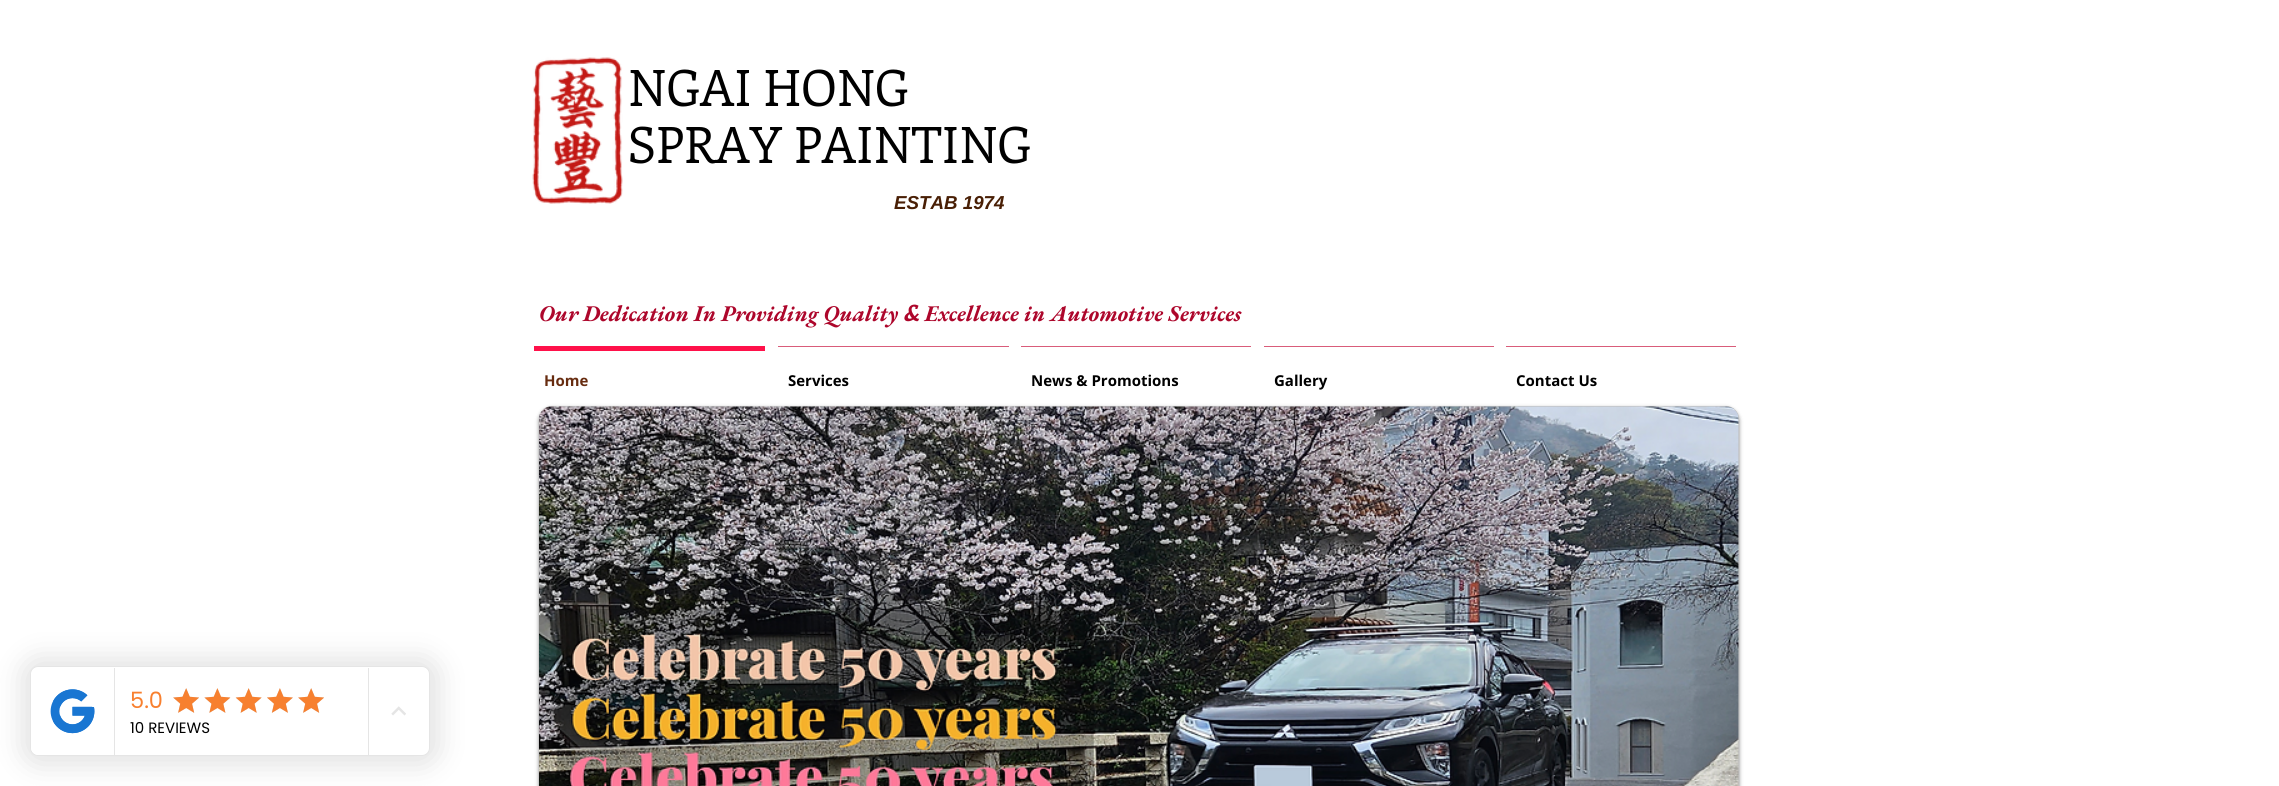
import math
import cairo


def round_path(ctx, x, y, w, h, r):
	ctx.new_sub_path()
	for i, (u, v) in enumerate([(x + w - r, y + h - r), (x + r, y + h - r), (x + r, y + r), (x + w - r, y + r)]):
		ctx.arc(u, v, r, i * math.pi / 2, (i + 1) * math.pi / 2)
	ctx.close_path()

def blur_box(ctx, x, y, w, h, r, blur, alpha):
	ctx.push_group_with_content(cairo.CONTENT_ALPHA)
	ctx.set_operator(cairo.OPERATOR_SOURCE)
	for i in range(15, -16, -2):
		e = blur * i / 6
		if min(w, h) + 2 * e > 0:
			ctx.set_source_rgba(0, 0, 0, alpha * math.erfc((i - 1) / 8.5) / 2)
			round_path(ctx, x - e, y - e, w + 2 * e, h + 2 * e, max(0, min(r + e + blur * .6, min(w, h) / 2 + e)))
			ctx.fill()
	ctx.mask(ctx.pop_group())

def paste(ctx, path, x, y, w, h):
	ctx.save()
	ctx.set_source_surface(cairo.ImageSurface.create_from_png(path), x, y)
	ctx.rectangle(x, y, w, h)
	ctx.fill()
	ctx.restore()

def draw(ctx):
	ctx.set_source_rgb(1, 1, 1)
	ctx.paint()
	paste(ctx, 'media/1.png', 532, 57, 91, 147)
	ctx.select_font_face('Enriqueta')
	ctx.set_font_size(50)
	ctx.set_source_rgb(0, 0, 0)
	ctx.move_to(628, 106)
	ctx.show_text('NGAI HONG')
	ctx.move_to(628, 163)
	ctx.show_text('SPRAY PAINTING')
	ctx.select_font_face('Liberation Sans', cairo.FONT_SLANT_ITALIC, cairo.FONT_WEIGHT_BOLD)
	ctx.set_font_size(18.75)
	ctx.set_source_rgb(0.286, 0.122, 0.02)
	ctx.move_to(894, 209)
	ctx.show_text('ESTAB 1974')
	ctx.select_font_face('EB Garamond', cairo.FONT_SLANT_ITALIC, cairo.FONT_WEIGHT_BOLD)
	ctx.set_font_size(22.5)
	ctx.set_source_rgb(0.678, 0.024, 0.169)
	ctx.move_to(539, 321)
	ctx.show_text('Our Dedication In Providing Quality')
	ctx.select_font_face('Enriqueta', cairo.FONT_SLANT_ITALIC, cairo.FONT_WEIGHT_BOLD)
	ctx.move_to(903, 321)
	ctx.show_text('&')
	ctx.select_font_face('EB Garamond', cairo.FONT_SLANT_ITALIC, cairo.FONT_WEIGHT_BOLD)
	ctx.move_to(925, 321)
	ctx.show_text('Excellence in Automotive Services')
	ctx.set_source_rgb(1, 0.067, 0.29)
	ctx.rectangle(534, 346, 231, 5)
	ctx.fill()
	ctx.select_font_face('Open Sans', cairo.FONT_SLANT_NORMAL, cairo.FONT_WEIGHT_BOLD)
	ctx.set_font_size(15)
	ctx.set_source_rgb(0.404, 0.173, 0.063)
	ctx.move_to(544, 386)
	ctx.show_text('Home')
	ctx.set_source_rgb(0.851, 0.361, 0.478)
	ctx.rectangle(778, 346, 231, 1)
	ctx.fill()
	ctx.set_source_rgb(0, 0, 0)
	ctx.move_to(788, 386)
	ctx.show_text('Services')
	ctx.set_source_rgb(0.851, 0.361, 0.478)
	ctx.rectangle(1021, 346, 230, 1)
	ctx.fill()
	ctx.set_source_rgb(0, 0, 0)
	ctx.move_to(1031, 386)
	ctx.show_text('News & Promotions')
	ctx.set_source_rgb(0.851, 0.361, 0.478)
	ctx.rectangle(1264, 346, 230, 1)
	ctx.fill()
	ctx.set_source_rgb(0, 0, 0)
	ctx.move_to(1274, 386)
	ctx.show_text('Gallery')
	ctx.set_source_rgb(0.851, 0.361, 0.478)
	ctx.rectangle(1506, 346, 230, 1)
	ctx.fill()
	ctx.set_source_rgb(0, 0, 0)
	ctx.move_to(1516, 386)
	ctx.show_text('Contact Us')
	ctx.set_source_rgb(0, 0, 0)
	blur_box(ctx, 539, 408, 1200, 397, 13, 2, 0.5)
	ctx.set_source_rgb(0.749, 0.749, 0.749)
	round_path(ctx, 539, 406, 1200, 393, 13)
	ctx.fill()
	paste(ctx, 'media/2.png', 539, 406, 1200, 380)
	ctx.set_source_rgb(0, 0, 0)
	blur_box(ctx, 23, 659, 415, 105, 15, 15, 0.12)
	ctx.set_source_rgb(1, 1, 1)
	round_path(ctx, 30.5, 666.5, 399, 89, 7.5)
	ctx.fill_preserve()
	ctx.set_source_rgb(0.898, 0.898, 0.898)
	ctx.set_line_width(1)
	ctx.stroke()
	ctx.set_source_rgb(1, 1, 1)
	ctx.new_path()
	ctx.move_to(39, 668)
	ctx.line_to(115, 668)
	ctx.line_to(115, 755)
	ctx.line_to(39, 755)
	ctx.curve_to(34.5, 755, 31, 751.5, 31, 747)
	ctx.line_to(31, 676)
	ctx.curve_to(31, 671.5, 34.5, 668, 39, 668)
	ctx.close_path()
	ctx.fill()
	ctx.set_source_rgb(0.898, 0.898, 0.898)
	ctx.rectangle(114, 668, 1, 87)
	ctx.fill()
	paste(ctx, 'media/3.png', 50, 689, 45, 45)
	ctx.rectangle(368, 668, 1, 87)
	ctx.fill()
	ctx.select_font_face('Poppins')
	ctx.set_font_size(22.5)
	ctx.set_source_rgb(0.969, 0.502, 0.184)
	ctx.move_to(130, 708)
	ctx.show_text('5.0')
	paste(ctx, 'media/4.png', 173, 688, 26, 25)
	paste(ctx, 'media/5.png', 173, 688, 26, 25)
	paste(ctx, 'media/6.png', 204, 688, 26, 25)
	paste(ctx, 'media/7.png', 204, 688, 27, 25)
	paste(ctx, 'media/9.png', 236, 688, 26, 25)
	paste(ctx, 'media/8.png', 235, 688, 27, 25)
	paste(ctx, 'media/10.png', 267, 688, 26, 25)
	paste(ctx, 'media/11.png', 267, 688, 26, 25)
	paste(ctx, 'media/4.png', 298, 688, 26, 25)
	paste(ctx, 'media/5.png', 298, 688, 26, 25)
	ctx.set_font_size(15)
	ctx.set_source_rgb(0, 0, 0)
	ctx.move_to(130, 733)
	ctx.show_text('10 REVIEWS')
	paste(ctx, 'media/12.png', 391, 706, 15, 10)


surface = cairo.ImageSurface(cairo.FORMAT_RGB24, 2279, 786)
ctx = cairo.Context(surface)
options = cairo.FontOptions()
options.set_hint_metrics(cairo.HINT_METRICS_OFF)
options.set_hint_style(cairo.HINT_STYLE_NONE)
ctx.set_font_options(options)
ctx.set_miter_limit(4)
draw(ctx)
surface.write_to_png('image.png')
